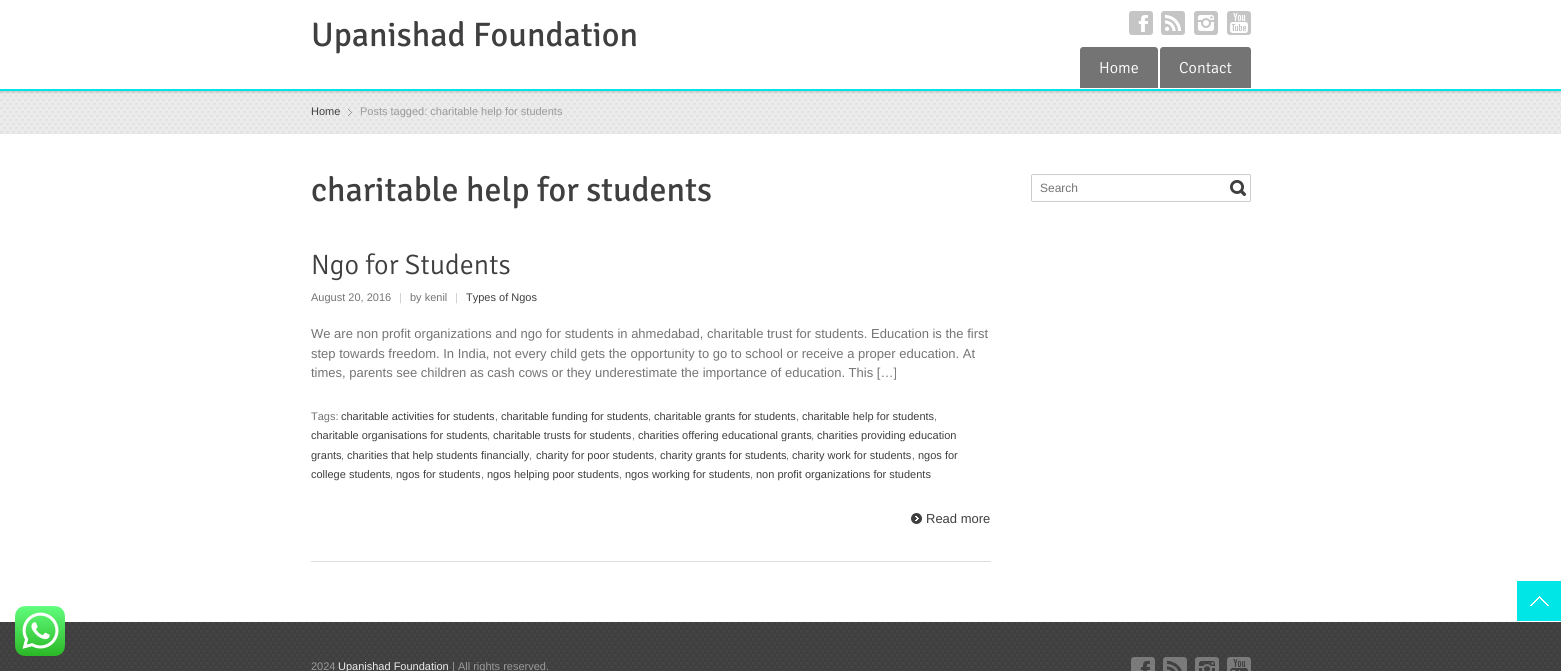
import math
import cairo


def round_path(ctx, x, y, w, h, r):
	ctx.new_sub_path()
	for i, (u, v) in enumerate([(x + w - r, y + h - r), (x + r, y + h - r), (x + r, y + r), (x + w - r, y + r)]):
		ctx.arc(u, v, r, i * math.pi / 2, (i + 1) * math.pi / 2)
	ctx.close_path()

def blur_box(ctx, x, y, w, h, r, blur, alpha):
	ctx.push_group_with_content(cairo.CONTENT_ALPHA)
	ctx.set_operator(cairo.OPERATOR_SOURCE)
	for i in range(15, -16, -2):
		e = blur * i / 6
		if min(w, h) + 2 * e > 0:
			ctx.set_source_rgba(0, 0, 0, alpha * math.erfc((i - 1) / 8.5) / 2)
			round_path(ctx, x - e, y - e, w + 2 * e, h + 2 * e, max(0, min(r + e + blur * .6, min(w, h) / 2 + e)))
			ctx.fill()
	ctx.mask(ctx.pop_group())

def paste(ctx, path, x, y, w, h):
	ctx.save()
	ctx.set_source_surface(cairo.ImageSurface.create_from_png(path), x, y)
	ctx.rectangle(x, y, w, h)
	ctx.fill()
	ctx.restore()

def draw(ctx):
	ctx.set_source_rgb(1, 1, 1)
	ctx.paint()
	ctx.set_source_rgb(0.925, 0.925, 0.925)
	ctx.rectangle(0, 91, 1561, 42)
	ctx.fill()
	paste(ctx, 'media/5.png', 0, 91, 1561, 42)
	ctx.save()
	ctx.rectangle(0, 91, 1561, 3)
	ctx.clip()
	ctx.set_source_rgb(0, 0, 0)
	blur_box(ctx, 0, 0, 1561, 91, 0, 2, 0.3)
	ctx.restore()
	ctx.set_source_rgb(0, 0.898, 0.898)
	ctx.rectangle(0, 89, 1561, 2)
	ctx.fill()
	ctx.select_font_face('Signika')
	ctx.set_font_size(34)
	ctx.set_source_rgb(0.247, 0.247, 0.247)
	ctx.move_to(311, 46)
	ctx.show_text('Upanishad Foundation')
	paste(ctx, 'media/1.png', 1129, 11, 24, 24)
	paste(ctx, 'media/2.png', 1161, 11, 24, 24)
	paste(ctx, 'media/3.png', 1194, 11, 24, 24)
	paste(ctx, 'media/4.png', 1227, 11, 24, 24)
	ctx.set_source_rgb(0.455, 0.455, 0.455)
	ctx.new_path()
	ctx.move_to(1083, 47)
	ctx.line_to(1155, 47)
	ctx.curve_to(1156.5, 47, 1158, 48.5, 1158, 50)
	ctx.line_to(1158, 89)
	ctx.line_to(1080, 89)
	ctx.line_to(1080, 50)
	ctx.curve_to(1080, 48.5, 1081.5, 47, 1083, 47)
	ctx.close_path()
	ctx.fill()
	ctx.set_source_rgb(1, 1, 1)
	ctx.rectangle(1080, 88, 78, 1)
	ctx.fill()
	ctx.select_font_face('Signika Light')
	ctx.set_font_size(16)
	ctx.move_to(1099, 73)
	ctx.show_text('Home')
	ctx.set_source_rgb(0.455, 0.455, 0.455)
	ctx.new_path()
	ctx.move_to(1163, 47)
	ctx.line_to(1248, 47)
	ctx.curve_to(1249.5, 47, 1251, 48.5, 1251, 50)
	ctx.line_to(1251, 89)
	ctx.line_to(1160, 89)
	ctx.line_to(1160, 50)
	ctx.curve_to(1160, 48.5, 1161.5, 47, 1163, 47)
	ctx.close_path()
	ctx.fill()
	ctx.set_source_rgb(1, 1, 1)
	ctx.rectangle(1160, 88, 91, 1)
	ctx.fill()
	ctx.move_to(1179, 73)
	ctx.show_text('Contact')
	ctx.set_source_rgb(0.902, 0.902, 0.902)
	ctx.rectangle(0, 133, 1561, 1)
	ctx.fill()
	ctx.select_font_face('Liberation Sans')
	ctx.set_font_size(11)
	ctx.set_source_rgb(0.247, 0.247, 0.247)
	ctx.move_to(311, 115)
	ctx.show_text('Home')
	paste(ctx, 'media/6.png', 348, 109, 4, 7)
	ctx.set_source_rgb(0.6, 0.6, 0.6)
	ctx.move_to(360, 115)
	ctx.show_text('Posts tagged: charitable help for students')
	ctx.select_font_face('Signika')
	ctx.set_font_size(34)
	ctx.set_source_rgb(0.247, 0.247, 0.247)
	ctx.move_to(311, 201)
	ctx.show_text('charitable help for students')
	ctx.set_source_rgb(0.875, 0.875, 0.875)
	ctx.rectangle(311, 561, 680, 1)
	ctx.fill()
	ctx.select_font_face('Signika Light')
	ctx.set_font_size(28)
	ctx.set_source_rgb(0.247, 0.247, 0.247)
	ctx.move_to(311, 274)
	ctx.show_text('Ngo for Students')
	ctx.select_font_face('Liberation Sans')
	ctx.set_font_size(11)
	ctx.set_source_rgb(0.455, 0.455, 0.455)
	ctx.move_to(311, 301)
	ctx.show_text('August 20, 2016')
	ctx.set_source_rgb(0.8, 0.8, 0.8)
	ctx.move_to(399, 301)
	ctx.show_text('|')
	ctx.set_source_rgb(0.455, 0.455, 0.455)
	ctx.move_to(410, 301)
	ctx.show_text('by kenil')
	ctx.set_source_rgb(0.8, 0.8, 0.8)
	ctx.move_to(455, 301)
	ctx.show_text('|')
	ctx.set_source_rgb(0.247, 0.247, 0.247)
	ctx.move_to(466, 301)
	ctx.show_text('Types of Ngos')
	ctx.set_font_size(13)
	ctx.set_source_rgb(0.455, 0.455, 0.455)
	for x, y, s in [
		(311, 338, 'We are non profit organizations and ngo for students in ahmedabad, charitable trust for students. Education is the first'),
		(311, 358, 'step towards freedom. In India, not every child gets the opportunity to go to school or receive a proper education. At'),
		(311, 377, 'times, parents see children as cash cows or they underestimate the importance of education. This […]'),
	]:
		ctx.move_to(x, y)
		ctx.show_text(s)
	ctx.set_font_size(11)
	ctx.move_to(311, 420)
	ctx.show_text('Tags:')
	ctx.set_source_rgb(0.247, 0.247, 0.247)
	ctx.move_to(341, 420)
	ctx.show_text('charitable activities for students')
	ctx.set_source_rgb(0.455, 0.455, 0.455)
	ctx.move_to(495, 420)
	ctx.show_text(',')
	ctx.set_source_rgb(0.247, 0.247, 0.247)
	ctx.move_to(501, 420)
	ctx.show_text('charitable funding for students')
	ctx.set_source_rgb(0.455, 0.455, 0.455)
	ctx.move_to(648, 420)
	ctx.show_text(',')
	ctx.set_source_rgb(0.247, 0.247, 0.247)
	ctx.move_to(654, 420)
	ctx.show_text('charitable grants for students')
	ctx.set_source_rgb(0.455, 0.455, 0.455)
	ctx.move_to(796, 420)
	ctx.show_text(',')
	ctx.set_source_rgb(0.247, 0.247, 0.247)
	ctx.move_to(802, 420)
	ctx.show_text('charitable help for students')
	ctx.set_source_rgb(0.455, 0.455, 0.455)
	ctx.move_to(934, 420)
	ctx.show_text(',')
	ctx.set_source_rgb(0.247, 0.247, 0.247)
	ctx.move_to(311, 439)
	ctx.show_text('charitable organisations for students')
	ctx.set_source_rgb(0.455, 0.455, 0.455)
	ctx.move_to(487, 439)
	ctx.show_text(',')
	ctx.set_source_rgb(0.247, 0.247, 0.247)
	ctx.move_to(493, 439)
	ctx.show_text('charitable trusts for students')
	ctx.set_source_rgb(0.455, 0.455, 0.455)
	ctx.move_to(632, 439)
	ctx.show_text(',')
	ctx.set_source_rgb(0.247, 0.247, 0.247)
	ctx.move_to(638, 439)
	ctx.show_text('charities offering educational grants')
	ctx.set_source_rgb(0.455, 0.455, 0.455)
	ctx.move_to(811, 439)
	ctx.show_text(',')
	ctx.set_source_rgb(0.247, 0.247, 0.247)
	ctx.move_to(817, 439)
	ctx.show_text('charities providing education')
	ctx.move_to(311, 459)
	ctx.show_text('grants')
	ctx.set_source_rgb(0.455, 0.455, 0.455)
	ctx.move_to(341, 459)
	ctx.show_text(',')
	ctx.set_source_rgb(0.247, 0.247, 0.247)
	ctx.move_to(347, 459)
	ctx.show_text('charities that help students financially')
	ctx.set_source_rgb(0.455, 0.455, 0.455)
	ctx.move_to(529, 459)
	ctx.show_text(',')
	ctx.set_source_rgb(0.247, 0.247, 0.247)
	ctx.move_to(536, 459)
	ctx.show_text('charity for poor students')
	ctx.set_source_rgb(0.455, 0.455, 0.455)
	ctx.move_to(654, 459)
	ctx.show_text(',')
	ctx.set_source_rgb(0.247, 0.247, 0.247)
	ctx.move_to(660, 459)
	ctx.show_text('charity grants for students')
	ctx.set_source_rgb(0.455, 0.455, 0.455)
	ctx.move_to(786, 459)
	ctx.show_text(',')
	ctx.set_source_rgb(0.247, 0.247, 0.247)
	ctx.move_to(792, 459)
	ctx.show_text('charity work for students')
	ctx.set_source_rgb(0.455, 0.455, 0.455)
	ctx.move_to(912, 459)
	ctx.show_text(',')
	ctx.set_source_rgb(0.247, 0.247, 0.247)
	ctx.move_to(918, 459)
	ctx.show_text('ngos for')
	ctx.move_to(311, 478)
	ctx.show_text('college students')
	ctx.set_source_rgb(0.455, 0.455, 0.455)
	ctx.move_to(390, 478)
	ctx.show_text(',')
	ctx.set_source_rgb(0.247, 0.247, 0.247)
	ctx.move_to(396, 478)
	ctx.show_text('ngos for students')
	ctx.set_source_rgb(0.455, 0.455, 0.455)
	ctx.move_to(481, 478)
	ctx.show_text(',')
	ctx.set_source_rgb(0.247, 0.247, 0.247)
	ctx.move_to(487, 478)
	ctx.show_text('ngos helping poor students')
	ctx.set_source_rgb(0.455, 0.455, 0.455)
	ctx.move_to(619, 478)
	ctx.show_text(',')
	ctx.set_source_rgb(0.247, 0.247, 0.247)
	ctx.move_to(625, 478)
	ctx.show_text('ngos working for students')
	ctx.set_source_rgb(0.455, 0.455, 0.455)
	ctx.move_to(750, 478)
	ctx.show_text(',')
	ctx.set_source_rgb(0.247, 0.247, 0.247)
	ctx.move_to(756, 478)
	ctx.show_text('non profit organizations for students')
	paste(ctx, 'media/7.png', 911, 513, 11, 11)
	ctx.set_font_size(13)
	ctx.move_to(926, 523)
	ctx.show_text('Read more')
	round_path(ctx, 1031.5, 174.5, 219, 27, 1.5)
	ctx.set_source_rgb(0.8, 0.8, 0.8)
	ctx.set_line_width(1)
	ctx.stroke()
	ctx.save()
	round_path(ctx, 1032, 175, 218, 26, 1)
	ctx.clip()
	ctx.set_source_rgb(1, 1, 1)
	round_path(ctx, 1032, 175, 218, 26, 2)
	ctx.fill()
	ctx.restore()
	ctx.set_font_size(12)
	ctx.set_source_rgb(0.455, 0.455, 0.455)
	ctx.move_to(1040, 192)
	ctx.show_text('Search')
	paste(ctx, 'media/8.png', 1230, 180, 16, 16)
	ctx.set_source_rgb(0, 0.898, 0.898)
	ctx.rectangle(1517, 581, 44, 40)
	ctx.fill()
	paste(ctx, 'media/9.png', 1530, 596, 19, 10)
	paste(ctx, 'media/10.png', 0, 622, 1561, 49)
	paste(ctx, 'media/11.png', 15, 606, 50, 50)
	ctx.set_font_size(11)
	ctx.set_source_rgb(0.6, 0.6, 0.6)
	ctx.move_to(311, 670)
	ctx.show_text('2024')
	ctx.set_source_rgb(0.922, 0.922, 0.922)
	ctx.move_to(338, 670)
	ctx.show_text('Upanishad Foundation')
	ctx.set_source_rgb(0.6, 0.6, 0.6)
	ctx.move_to(452, 670)
	ctx.show_text('| All rights reserved.')
	paste(ctx, 'media/12.png', 1131, 657, 24, 14)
	paste(ctx, 'media/13.png', 1163, 657, 24, 14)
	paste(ctx, 'media/14.png', 1195, 657, 24, 14)
	paste(ctx, 'media/15.png', 1227, 657, 24, 14)


surface = cairo.ImageSurface(cairo.FORMAT_RGB24, 1561, 671)
ctx = cairo.Context(surface)
options = cairo.FontOptions()
options.set_hint_metrics(cairo.HINT_METRICS_OFF)
options.set_hint_style(cairo.HINT_STYLE_NONE)
ctx.set_font_options(options)
ctx.set_miter_limit(4)
draw(ctx)
surface.write_to_png('image.png')
